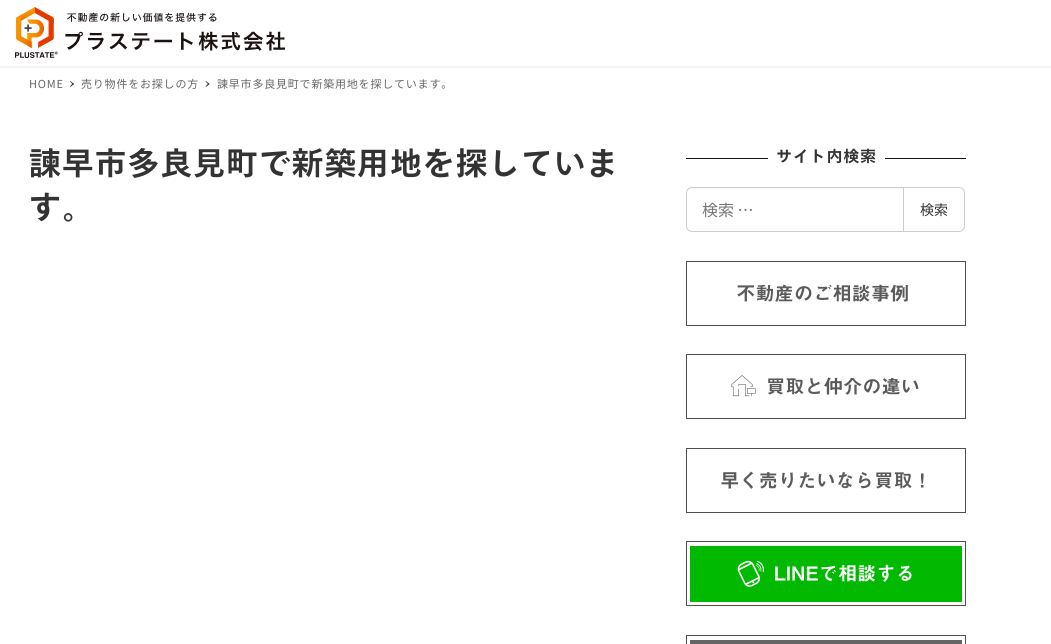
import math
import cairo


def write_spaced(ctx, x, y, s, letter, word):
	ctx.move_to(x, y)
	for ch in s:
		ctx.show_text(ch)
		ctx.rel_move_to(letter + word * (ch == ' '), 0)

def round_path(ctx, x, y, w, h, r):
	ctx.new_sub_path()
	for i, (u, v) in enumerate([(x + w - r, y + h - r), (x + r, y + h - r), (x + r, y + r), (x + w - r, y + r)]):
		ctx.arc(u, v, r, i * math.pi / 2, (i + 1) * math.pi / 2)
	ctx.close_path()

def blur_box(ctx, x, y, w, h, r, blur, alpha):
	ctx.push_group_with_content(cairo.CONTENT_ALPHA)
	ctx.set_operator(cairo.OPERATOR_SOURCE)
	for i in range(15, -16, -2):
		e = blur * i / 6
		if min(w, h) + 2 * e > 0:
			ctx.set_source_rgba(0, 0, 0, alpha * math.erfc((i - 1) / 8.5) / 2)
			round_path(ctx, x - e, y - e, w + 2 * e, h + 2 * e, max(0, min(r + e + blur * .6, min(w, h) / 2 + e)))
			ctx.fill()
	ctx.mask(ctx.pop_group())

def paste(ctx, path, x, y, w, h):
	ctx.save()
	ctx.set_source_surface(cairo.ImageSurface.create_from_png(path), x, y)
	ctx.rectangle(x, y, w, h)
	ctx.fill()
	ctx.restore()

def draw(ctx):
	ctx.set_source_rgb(1, 1, 1)
	ctx.paint()
	ctx.save()
	ctx.rectangle(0, 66, 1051, 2)
	ctx.clip()
	ctx.set_source_rgb(0, 0, 0)
	blur_box(ctx, -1, 0, 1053, 68, 0, 1, 0.05)
	ctx.restore()
	paste(ctx, 'media/1.png', 15, 7, 270, 51)
	ctx.select_font_face('Noto Sans JP')
	ctx.set_font_size(11)
	ctx.set_source_rgb(0.4, 0.4, 0.4)
	write_spaced(ctx, 29, 88, 'HOME', 0.8, 0)
	ctx.set_source_rgb(0.2, 0.2, 0.2)
	ctx.new_path()
	ctx.move_to(70.5, 81)
	ctx.line_to(74, 84)
	ctx.line_to(73, 84.5)
	ctx.line_to(70, 81.5)
	ctx.close_path()
	ctx.fill()
	ctx.new_path()
	ctx.move_to(73, 83)
	ctx.line_to(74, 84)
	ctx.line_to(70.5, 87)
	ctx.line_to(70, 86.5)
	ctx.close_path()
	ctx.fill()
	ctx.set_source_rgb(0.4, 0.4, 0.4)
	write_spaced(ctx, 81, 88, '売り物件をお探しの方', 0.8, 0)
	ctx.set_source_rgb(0.2, 0.2, 0.2)
	ctx.new_path()
	ctx.move_to(206, 81)
	ctx.line_to(209.5, 84)
	ctx.line_to(208.5, 84.5)
	ctx.line_to(205.5, 81.5)
	ctx.close_path()
	ctx.fill()
	ctx.new_path()
	ctx.move_to(208.5, 83)
	ctx.line_to(209.5, 84)
	ctx.line_to(206, 87)
	ctx.line_to(205.5, 86.5)
	ctx.close_path()
	ctx.fill()
	ctx.set_source_rgb(0.4, 0.4, 0.4)
	write_spaced(ctx, 217, 88, '諫早市多良見町で新築用地を探しています。', 0.8, 0)
	ctx.select_font_face('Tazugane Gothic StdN', cairo.FONT_SLANT_NORMAL, cairo.FONT_WEIGHT_BOLD)
	ctx.set_font_size(32)
	ctx.set_source_rgb(0.2, 0.2, 0.2)
	write_spaced(ctx, 29, 175, '諫早市多良見町で新築用地を探していま', 0.8, 0)
	write_spaced(ctx, 29, 219, 'す。', 0.8, 0)
	ctx.set_source_rgb(0.067, 0.067, 0.067)
	ctx.rectangle(686, 158, 82, 1)
	ctx.fill()
	ctx.set_font_size(16)
	ctx.set_source_rgb(0.2, 0.2, 0.2)
	write_spaced(ctx, 776, 162, 'サイト内検索', 0.8, 0)
	ctx.set_source_rgb(0.067, 0.067, 0.067)
	ctx.rectangle(885, 158, 81, 1)
	ctx.fill()
	ctx.new_path()
	ctx.move_to(903.5, 187.5)
	ctx.line_to(959, 187.5)
	ctx.curve_to(962, 187.5, 964.5, 190, 964.5, 193)
	ctx.line_to(964.5, 226)
	ctx.curve_to(964.5, 229, 962, 231.5, 959, 231.5)
	ctx.line_to(903.5, 231.5)
	ctx.close_path()
	ctx.set_source_rgb(0.8, 0.8, 0.8)
	ctx.set_line_width(1)
	ctx.stroke()
	ctx.set_source_rgb(1, 1, 1)
	ctx.new_path()
	ctx.move_to(692, 187)
	ctx.line_to(904, 187)
	ctx.line_to(904, 232)
	ctx.line_to(692, 232)
	ctx.curve_to(688.5, 232, 686, 229.5, 686, 226)
	ctx.line_to(686, 193)
	ctx.curve_to(686, 189.5, 688.5, 187, 692, 187)
	ctx.close_path()
	ctx.fill()
	ctx.set_source_rgb(0.965, 0.965, 0.965)
	ctx.new_path()
	ctx.move_to(692, 189)
	ctx.line_to(903, 189)
	ctx.line_to(903, 188)
	ctx.line_to(691, 188)
	ctx.curve_to(688, 189, 687, 191, 687, 194)
	ctx.curve_to(687, 191, 689, 189, 692, 189)
	ctx.close_path()
	ctx.fill()
	ctx.new_path()
	ctx.move_to(692, 187.5)
	ctx.line_to(903.5, 187.5)
	ctx.line_to(903.5, 231.5)
	ctx.line_to(692, 231.5)
	ctx.curve_to(689, 231.5, 686.5, 229, 686.5, 226)
	ctx.line_to(686.5, 193)
	ctx.curve_to(686.5, 190, 689, 187.5, 692, 187.5)
	ctx.close_path()
	ctx.set_source_rgb(0.8, 0.8, 0.8)
	ctx.stroke()
	ctx.select_font_face('Noto Sans JP')
	ctx.set_source_rgb(0.459, 0.459, 0.459)
	ctx.move_to(702, 216)
	ctx.show_text('検索 …')
	ctx.set_font_size(14)
	ctx.set_source_rgb(0.2, 0.2, 0.2)
	ctx.move_to(920, 215)
	ctx.show_text('検索')
	paste(ctx, 'media/2.png', 686, 261, 280, 65)
	paste(ctx, 'media/3.png', 686, 354, 280, 65)
	paste(ctx, 'media/4.png', 686, 448, 280, 65)
	paste(ctx, 'media/5.png', 686, 541, 280, 65)
	paste(ctx, 'media/6.png', 686, 635, 280, 9)


surface = cairo.ImageSurface(cairo.FORMAT_RGB24, 1051, 644)
ctx = cairo.Context(surface)
options = cairo.FontOptions()
options.set_hint_metrics(cairo.HINT_METRICS_OFF)
options.set_hint_style(cairo.HINT_STYLE_NONE)
ctx.set_font_options(options)
ctx.set_miter_limit(4)
draw(ctx)
surface.write_to_png('image.png')
